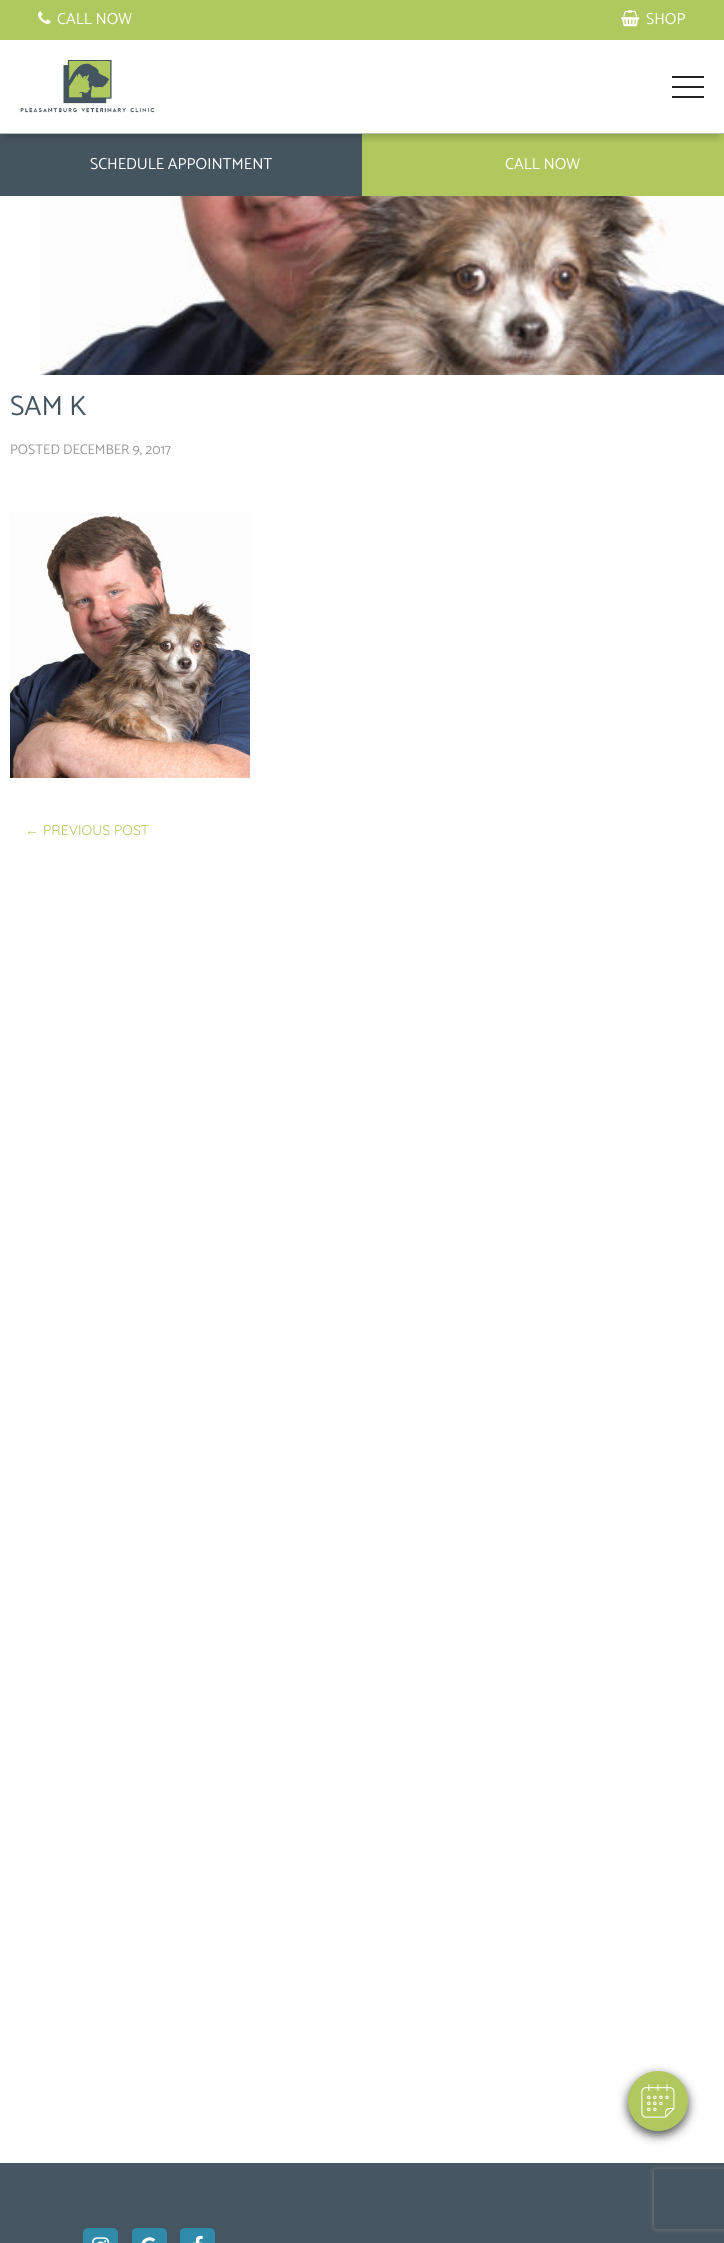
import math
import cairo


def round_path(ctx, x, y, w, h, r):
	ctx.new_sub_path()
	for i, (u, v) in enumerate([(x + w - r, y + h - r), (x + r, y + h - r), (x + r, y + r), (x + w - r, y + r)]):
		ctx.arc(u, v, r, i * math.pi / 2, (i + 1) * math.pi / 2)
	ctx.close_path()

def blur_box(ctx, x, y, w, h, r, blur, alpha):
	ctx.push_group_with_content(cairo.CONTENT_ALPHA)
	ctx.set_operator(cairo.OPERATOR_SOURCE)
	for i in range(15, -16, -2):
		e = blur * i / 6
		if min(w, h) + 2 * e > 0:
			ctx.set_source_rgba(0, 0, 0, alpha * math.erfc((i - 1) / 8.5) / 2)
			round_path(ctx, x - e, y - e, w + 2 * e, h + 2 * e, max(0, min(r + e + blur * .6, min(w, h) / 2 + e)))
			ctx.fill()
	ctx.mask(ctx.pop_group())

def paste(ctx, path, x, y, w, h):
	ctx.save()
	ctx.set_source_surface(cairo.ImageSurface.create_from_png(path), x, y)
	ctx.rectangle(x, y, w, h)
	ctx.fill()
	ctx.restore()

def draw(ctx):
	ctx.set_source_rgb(1, 1, 1)
	ctx.paint()
	ctx.set_source_rgb(0.686, 0.788, 0.369)
	ctx.rectangle(0, 0, 724, 40)
	ctx.fill()
	paste(ctx, 'media/1.png', 38, 11, 13, 13)
	ctx.select_font_face('Catamaran Thin')
	ctx.set_font_size(16)
	ctx.set_source_rgb(1, 1, 1)
	ctx.move_to(57, 24)
	ctx.show_text('CALL NOW')
	paste(ctx, 'media/2.png', 621, 10, 19, 17)
	ctx.move_to(646, 24)
	ctx.show_text('SHOP')
	ctx.set_source_rgb(0.271, 0.333, 0.376)
	ctx.rectangle(0, 134, 362, 62)
	ctx.fill()
	ctx.set_source_rgb(0.69, 0.784, 0.365)
	ctx.rectangle(362, 134, 362, 62)
	ctx.fill()
	ctx.save()
	ctx.rectangle(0, 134, 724, 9)
	ctx.clip()
	ctx.set_source_rgb(0, 0, 0)
	blur_box(ctx, 6, 54, 712, 82, 0, 5, 0.25)
	ctx.restore()
	ctx.set_source_rgb(0.737, 0.737, 0.737)
	ctx.rectangle(0, 133, 724, 1)
	ctx.fill()
	paste(ctx, 'media/3.png', 20, 60, 135, 53)
	ctx.set_source_rgb(0.133, 0.133, 0.133)
	ctx.rectangle(672, 86, 32, 2)
	ctx.rectangle(672, 76, 32, 2)
	ctx.rectangle(672, 96, 32, 2)
	ctx.fill()
	ctx.set_source_rgb(1, 1, 1)
	ctx.move_to(90, 169)
	ctx.show_text('SCHEDULE APPOINTMENT')
	ctx.move_to(505, 169)
	ctx.show_text('CALL NOW')
	paste(ctx, 'media/4.png', 40, 196, 684, 179)
	ctx.set_font_size(28)
	ctx.set_source_rgb(0.271, 0.333, 0.376)
	ctx.move_to(10, 415)
	ctx.show_text('SAM K')
	ctx.set_font_size(14)
	ctx.set_source_rgb(0.6, 0.6, 0.6)
	ctx.move_to(10, 454)
	ctx.show_text('POSTED DECEMBER 9, 2017')
	paste(ctx, 'media/5.png', 10, 513, 240, 265)
	ctx.select_font_face('Liberation Sans')
	ctx.set_source_rgb(0.69, 0.784, 0.365)
	ctx.move_to(25, 835)
	ctx.show_text('←')
	ctx.select_font_face('Quicksand')
	ctx.move_to(43, 835)
	ctx.show_text('PREVIOUS POST')
	ctx.set_source_rgb(0, 0, 0)
	blur_box(ctx, 628, 2075, 60, 60, 30, 5, 0.7)
	ctx.set_source_rgb(0.69, 0.784, 0.365)
	ctx.arc(658, 2101, 30, 0, 2 * math.pi)
	ctx.fill()
	paste(ctx, 'media/6.png', 641, 2084, 34, 34)
	ctx.set_source_rgb(0.271, 0.333, 0.38)
	ctx.rectangle(0, 2163, 724, 80)
	ctx.fill()
	ctx.save()
	ctx.set_fill_rule(cairo.FILL_RULE_EVEN_ODD)
	ctx.new_path()
	ctx.move_to(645, 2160)
	ctx.line_to(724, 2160)
	ctx.line_to(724, 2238)
	ctx.line_to(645, 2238)
	ctx.close_path()
	ctx.move_to(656, 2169)
	ctx.line_to(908, 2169)
	ctx.curve_to(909, 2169, 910, 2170, 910, 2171)
	ctx.line_to(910, 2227)
	ctx.curve_to(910, 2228, 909, 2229, 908, 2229)
	ctx.line_to(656, 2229)
	ctx.curve_to(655, 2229, 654, 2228, 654, 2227)
	ctx.line_to(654, 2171)
	ctx.curve_to(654, 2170, 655, 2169, 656, 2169)
	ctx.close_path()
	ctx.clip()
	ctx.set_source_rgb(0.502, 0.502, 0.502)
	blur_box(ctx, 654, 2169, 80, 60, 2, 2.5, 1)
	ctx.restore()
	ctx.set_source_rgb(0.188, 0.545, 0.667)
	round_path(ctx, 83, 2228, 35, 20, 5)
	ctx.fill()
	paste(ctx, 'media/7.png', 92, 2237, 18, 6)
	round_path(ctx, 132, 2228, 35, 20, 5)
	ctx.fill()
	paste(ctx, 'media/8.png', 141, 2237, 15, 6)
	round_path(ctx, 180, 2228, 35, 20, 5)
	ctx.fill()
	paste(ctx, 'media/9.png', 193, 2235, 10, 8)


surface = cairo.ImageSurface(cairo.FORMAT_RGB24, 724, 2243)
ctx = cairo.Context(surface)
options = cairo.FontOptions()
options.set_hint_metrics(cairo.HINT_METRICS_OFF)
options.set_hint_style(cairo.HINT_STYLE_NONE)
ctx.set_font_options(options)
ctx.set_miter_limit(4)
draw(ctx)
surface.write_to_png('image.png')
